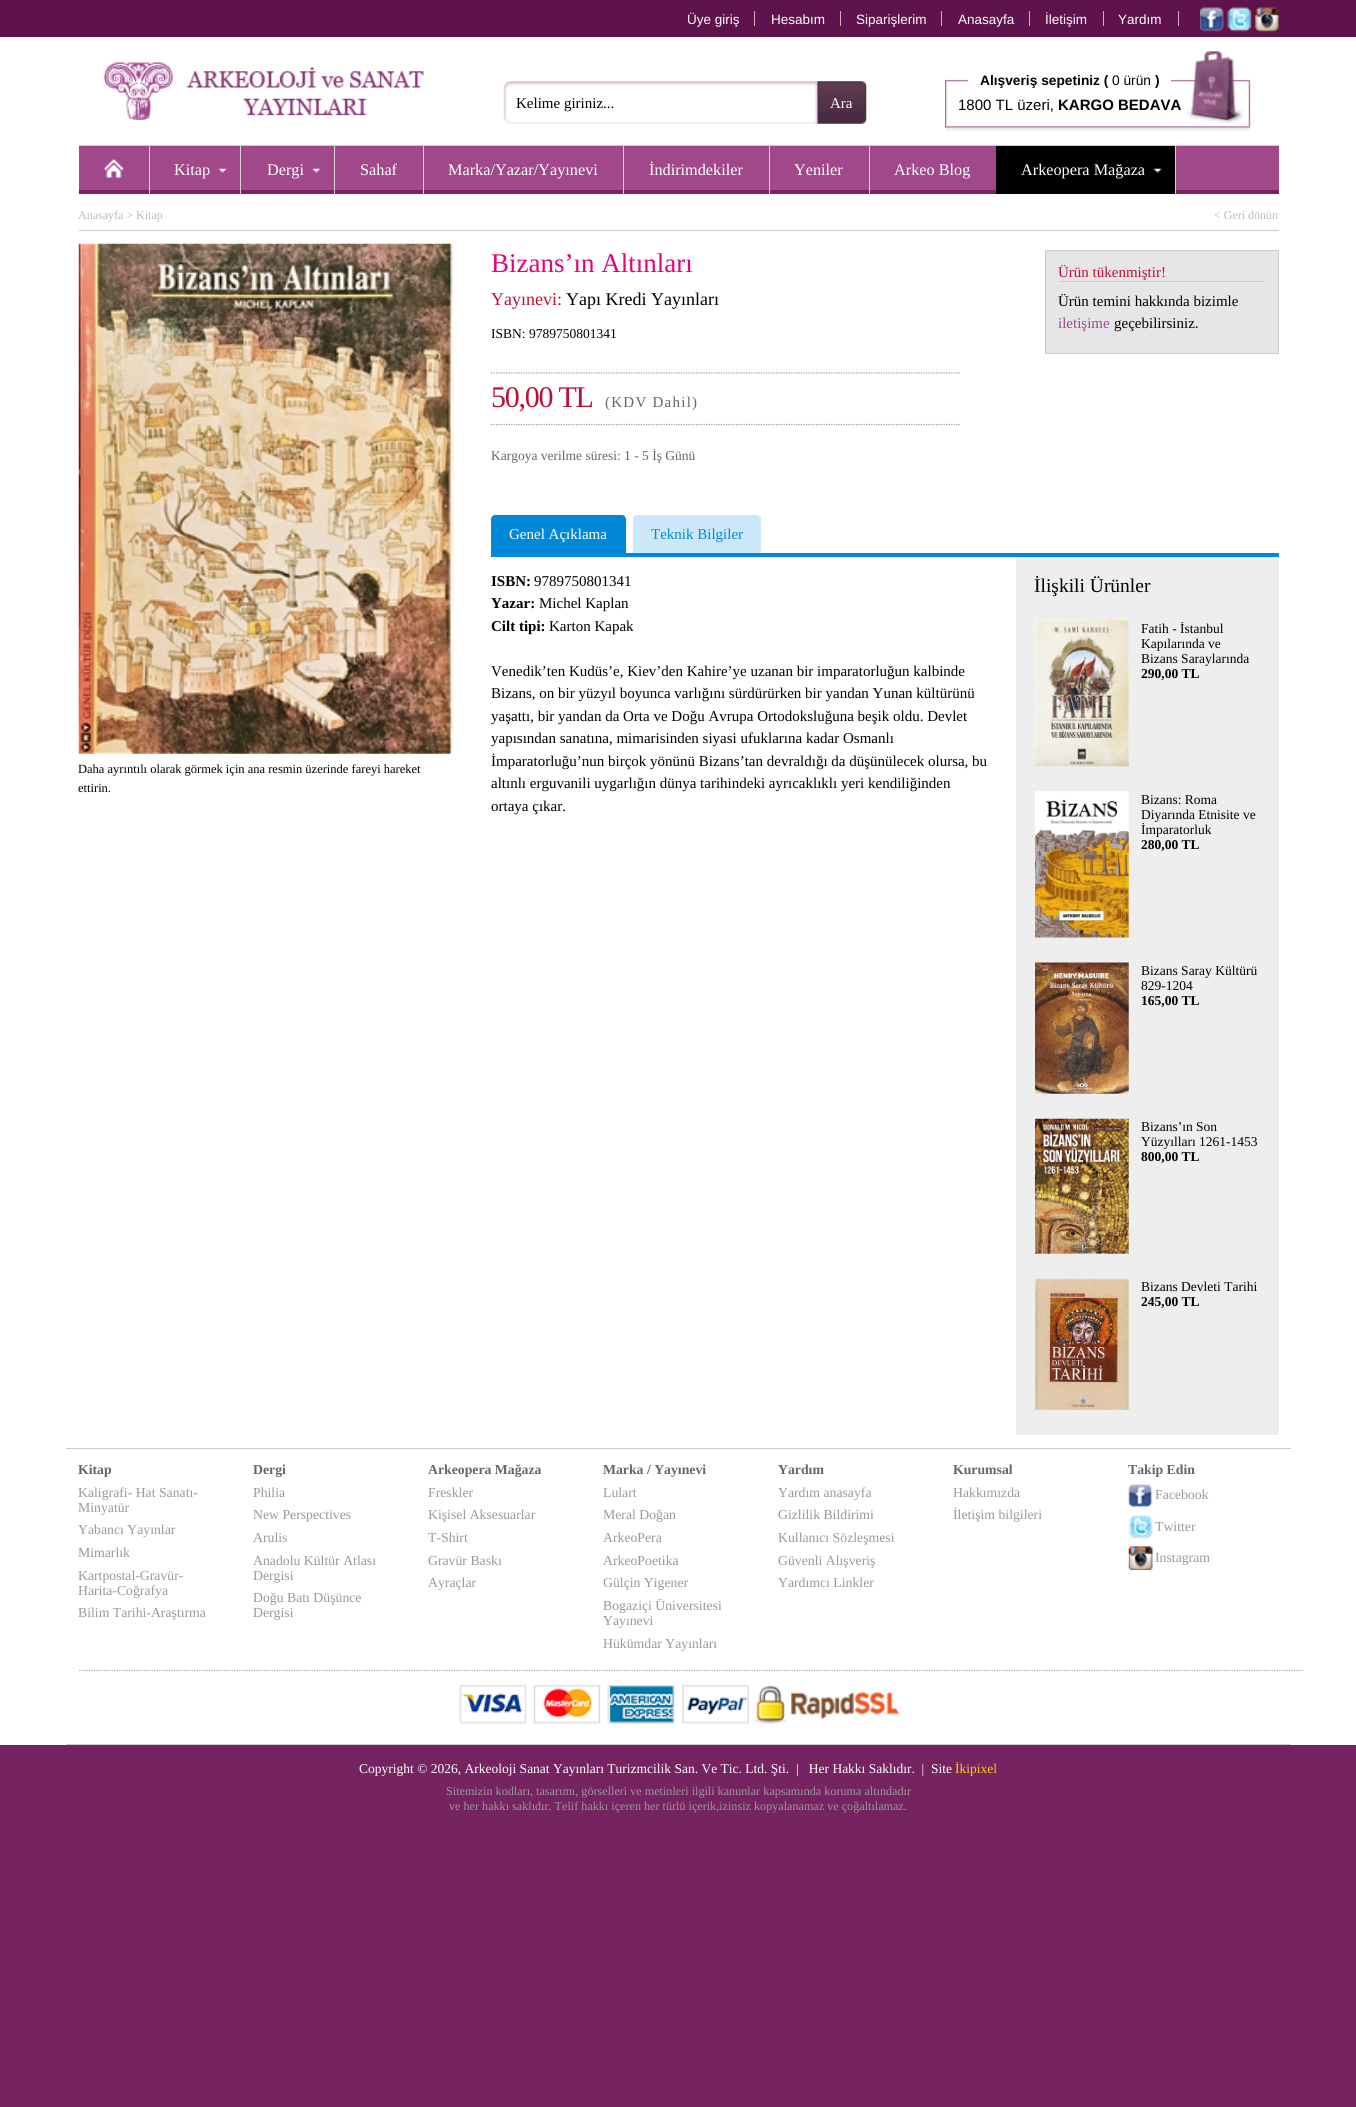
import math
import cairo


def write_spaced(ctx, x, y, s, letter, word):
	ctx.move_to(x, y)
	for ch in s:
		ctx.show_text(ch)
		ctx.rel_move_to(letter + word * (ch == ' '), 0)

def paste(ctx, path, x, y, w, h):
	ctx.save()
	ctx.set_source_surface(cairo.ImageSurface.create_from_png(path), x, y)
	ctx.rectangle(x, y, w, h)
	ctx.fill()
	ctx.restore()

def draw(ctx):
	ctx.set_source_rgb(0.463, 0.137, 0.38)
	ctx.paint()
	ctx.set_source_rgb(1, 1, 1)
	ctx.rectangle(0, 37, 1356, 1708)
	ctx.fill()
	ctx.set_source_rgb(0.373, 0.075, 0.298)
	ctx.rectangle(0, 0, 1356, 37)
	ctx.fill()
	ctx.select_font_face('Liberation Sans')
	ctx.set_font_size(13.5)
	ctx.set_source_rgb(1, 1, 1)
	ctx.move_to(687, 24)
	ctx.show_text('Üye giriş')
	ctx.set_source_rgb(0.835, 0.686, 0.706)
	ctx.rectangle(754, 11, 1, 15)
	ctx.fill()
	ctx.set_source_rgb(1, 1, 1)
	ctx.move_to(771, 24)
	ctx.show_text('Hesabım')
	ctx.set_source_rgb(0.835, 0.686, 0.706)
	ctx.rectangle(840, 11, 1, 15)
	ctx.fill()
	ctx.set_source_rgb(1, 1, 1)
	ctx.move_to(856, 24)
	ctx.show_text('Siparişlerim')
	ctx.set_source_rgb(0.835, 0.686, 0.706)
	ctx.rectangle(941, 11, 1, 15)
	ctx.fill()
	ctx.set_source_rgb(1, 1, 1)
	ctx.move_to(958, 24)
	ctx.show_text('Anasayfa')
	ctx.set_source_rgb(0.835, 0.686, 0.706)
	ctx.rectangle(1029, 11, 1, 15)
	ctx.fill()
	ctx.set_source_rgb(1, 1, 1)
	ctx.move_to(1045, 24)
	ctx.show_text('İletişim')
	ctx.set_source_rgb(0.835, 0.686, 0.706)
	ctx.rectangle(1103, 11, 1, 15)
	ctx.fill()
	ctx.set_source_rgb(1, 1, 1)
	ctx.move_to(1118, 24)
	ctx.show_text('Yardım')
	ctx.set_source_rgb(0.835, 0.686, 0.706)
	ctx.rectangle(1178, 11, 1, 15)
	ctx.fill()
	paste(ctx, 'media/1.png', 1200, 7, 24, 25)
	paste(ctx, 'media/2.png', 1227, 7, 25, 25)
	paste(ctx, 'media/3.png', 1255, 7, 24, 25)
	paste(ctx, 'media/4.png', 103, 62, 321, 58)
	paste(ctx, 'media/5.png', 503, 81, 364, 43)
	ctx.select_font_face('Liberation Serif')
	ctx.set_font_size(15)
	ctx.set_source_rgb(0, 0, 0)
	ctx.move_to(516, 108)
	ctx.show_text('Kelime giriniz...')
	ctx.set_source_rgb(1, 1, 1)
	ctx.move_to(830, 108)
	ctx.show_text('Ara')
	paste(ctx, 'media/6.png', 945, 51, 306, 80)
	ctx.rectangle(968, 79, 203, 3)
	ctx.fill()
	ctx.select_font_face('Liberation Sans', cairo.FONT_SLANT_NORMAL, cairo.FONT_WEIGHT_BOLD)
	ctx.set_font_size(13.75)
	ctx.set_source_rgb(0, 0, 0)
	ctx.move_to(980, 85)
	ctx.show_text('Alışveriş sepetiniz (')
	ctx.select_font_face('Liberation Sans')
	ctx.move_to(1112, 85)
	ctx.show_text('0 ürün')
	ctx.select_font_face('Liberation Sans', cairo.FONT_SLANT_NORMAL, cairo.FONT_WEIGHT_BOLD)
	ctx.move_to(1155, 85)
	ctx.show_text(')')
	ctx.select_font_face('Liberation Sans')
	ctx.set_font_size(15)
	ctx.move_to(958, 110)
	ctx.show_text('1800 TL üzeri,')
	ctx.select_font_face('Liberation Sans', cairo.FONT_SLANT_NORMAL, cairo.FONT_WEIGHT_BOLD)
	ctx.move_to(1058, 110)
	ctx.show_text('KARGO BEDAVA')
	ctx.set_source_rgb(0.627, 0.282, 0.541)
	ctx.rectangle(79, 146, 1200, 44)
	ctx.fill()
	ctx.set_source_rgb(0.8, 0.8, 0.8)
	ctx.rectangle(79, 145, 1200, 1)
	ctx.fill()
	ctx.set_source_rgb(0.463, 0.137, 0.38)
	ctx.rectangle(79, 190, 1200, 4)
	ctx.fill()
	ctx.set_source_rgb(0.835, 0.831, 0.8)
	ctx.rectangle(149, 146, 1, 48)
	ctx.fill()
	paste(ctx, 'media/7.png', 103, 158, 21, 21)
	paste(ctx, 'media/8.png', 218, 168, 9, 5)
	ctx.rectangle(240, 146, 1, 48)
	ctx.fill()
	ctx.select_font_face('Liberation Serif')
	ctx.set_font_size(16.25)
	ctx.set_source_rgb(1, 1, 1)
	ctx.move_to(174, 175)
	ctx.show_text('Kitap')
	paste(ctx, 'media/9.png', 312, 168, 9, 5)
	ctx.set_source_rgb(0.835, 0.831, 0.8)
	ctx.rectangle(334, 146, 1, 48)
	ctx.fill()
	ctx.set_source_rgb(1, 1, 1)
	ctx.move_to(267, 175)
	ctx.show_text('Dergi')
	ctx.set_source_rgb(0.835, 0.831, 0.8)
	ctx.rectangle(423, 146, 1, 48)
	ctx.fill()
	ctx.set_source_rgb(1, 1, 1)
	ctx.move_to(360, 175)
	ctx.show_text('Sahaf')
	ctx.set_source_rgb(0.835, 0.831, 0.8)
	ctx.rectangle(623, 146, 1, 48)
	ctx.fill()
	ctx.set_source_rgb(1, 1, 1)
	ctx.move_to(448, 175)
	ctx.show_text('Marka/Yazar/Yayınevi')
	ctx.set_source_rgb(0.835, 0.831, 0.8)
	ctx.rectangle(769, 146, 1, 48)
	ctx.fill()
	ctx.set_source_rgb(1, 1, 1)
	ctx.move_to(649, 175)
	ctx.show_text('İndirimdekiler')
	ctx.set_source_rgb(0.835, 0.831, 0.8)
	ctx.rectangle(869, 146, 1, 48)
	ctx.fill()
	ctx.set_source_rgb(1, 1, 1)
	ctx.move_to(794, 175)
	ctx.show_text('Yeniler')
	ctx.move_to(894, 175)
	ctx.show_text('Arkeo Blog')
	ctx.set_source_rgb(0, 0, 0)
	ctx.rectangle(996, 146, 179, 48)
	ctx.fill()
	paste(ctx, 'media/10.png', 1153, 168, 9, 5)
	ctx.set_source_rgb(0.835, 0.831, 0.8)
	ctx.rectangle(1175, 146, 1, 48)
	ctx.fill()
	ctx.set_source_rgb(1, 1, 1)
	ctx.move_to(1021, 175)
	ctx.show_text('Arkeopera Mağaza')
	ctx.set_source_rgb(0.8, 0.8, 0.8)
	ctx.rectangle(79, 230, 1200, 1)
	ctx.fill()
	ctx.set_font_size(12)
	ctx.set_source_rgb(0.733, 0.733, 0.733)
	ctx.move_to(78, 219)
	ctx.show_text('Anasayfa > Kitap')
	ctx.move_to(1214, 219)
	ctx.show_text('< Geri dönün')
	paste(ctx, 'media/11.png', 78, 243, 376, 511)
	ctx.set_font_size(12.5)
	ctx.set_source_rgb(0, 0, 0)
	ctx.move_to(78, 773)
	ctx.show_text('Daha ayrıntılı olarak görmek için ana resmin üzerinde fareyi hareket')
	ctx.move_to(78, 792)
	ctx.show_text('ettirin.')
	ctx.set_font_size(27)
	ctx.set_source_rgb(0.898, 0.008, 0.471)
	ctx.move_to(491, 272)
	ctx.show_text('Bizans’ın Altınları')
	ctx.set_font_size(18)
	ctx.set_source_rgb(0.733, 0.059, 0.216)
	ctx.move_to(491, 305)
	ctx.show_text('Yayınevi:')
	ctx.set_source_rgb(0, 0, 0)
	ctx.move_to(566, 305)
	ctx.show_text('Yapı Kredi Yayınları')
	ctx.set_font_size(13.5)
	ctx.move_to(491, 338)
	ctx.show_text('ISBN: 9789750801341')
	ctx.new_path()
	ctx.move_to(491, 373)
	ctx.line_to(960, 373)
	ctx.set_source_rgb(0.6, 0.6, 0.6)
	ctx.set_line_width(1.2)
	ctx.set_dash([1.25, 1.25])
	ctx.stroke()
	ctx.new_path()
	ctx.move_to(491, 424.5)
	ctx.line_to(960, 424.5)
	ctx.stroke()
	ctx.set_font_size(30)
	ctx.set_source_rgb(0.733, 0.059, 0.216)
	write_spaced(ctx, 491, 407, '50,00 TL', -1.25, 0)
	ctx.set_font_size(15)
	ctx.set_source_rgb(0.4, 0.4, 0.4)
	write_spaced(ctx, 605, 407, '(KDV Dahil)', 1.25, 0)
	ctx.set_font_size(13.5)
	ctx.move_to(491, 460)
	ctx.show_text('Kargoya verilme süresi: 1 - 5 İş Günü')
	ctx.set_source_rgb(0.902, 0.902, 0.902)
	ctx.rectangle(1045.5, 250.5, 233, 103)
	ctx.fill_preserve()
	ctx.set_source_rgb(0.8, 0.8, 0.8)
	ctx.set_line_width(1)
	ctx.set_dash([])
	ctx.stroke()
	ctx.rectangle(1059, 281, 206, 1)
	ctx.fill()
	ctx.set_font_size(15)
	ctx.set_source_rgb(0.733, 0.059, 0.216)
	ctx.move_to(1058, 277)
	ctx.show_text('Ürün tükenmiştir!')
	ctx.set_source_rgb(0, 0, 0)
	ctx.move_to(1058, 306)
	ctx.show_text('Ürün temini hakkında bizimle')
	ctx.set_source_rgb(0.627, 0.282, 0.541)
	ctx.move_to(1058, 328)
	ctx.show_text('iletişime')
	ctx.set_source_rgb(0, 0, 0)
	ctx.move_to(1114, 328)
	ctx.show_text('geçebilirsiniz.')
	ctx.set_source_rgb(0.008, 0.533, 0.847)
	ctx.new_path()
	ctx.move_to(495, 515)
	ctx.line_to(622, 515)
	ctx.curve_to(624, 515, 626, 517, 626, 519)
	ctx.line_to(626, 553)
	ctx.line_to(491, 553)
	ctx.line_to(491, 519)
	ctx.curve_to(491, 517, 493, 515, 495, 515)
	ctx.close_path()
	ctx.fill()
	ctx.set_source_rgb(1, 1, 1)
	ctx.move_to(509, 539)
	ctx.show_text('Genel Açıklama')
	ctx.set_source_rgb(0.8, 0.906, 0.969)
	ctx.new_path()
	ctx.move_to(637, 515)
	ctx.line_to(757, 515)
	ctx.curve_to(759, 515, 761, 517, 761, 519)
	ctx.line_to(761, 553)
	ctx.line_to(633, 553)
	ctx.line_to(633, 519)
	ctx.curve_to(633, 517, 635, 515, 637, 515)
	ctx.close_path()
	ctx.fill()
	ctx.set_source_rgb(0.008, 0.533, 0.847)
	ctx.move_to(651, 539)
	ctx.show_text('Teknik Bilgiler')
	ctx.select_font_face('Liberation Serif', cairo.FONT_SLANT_NORMAL, cairo.FONT_WEIGHT_BOLD)
	ctx.set_source_rgb(0, 0, 0)
	ctx.move_to(491, 586)
	ctx.show_text('ISBN:')
	ctx.select_font_face('Liberation Serif')
	ctx.move_to(534, 586)
	ctx.show_text('9789750801341')
	ctx.select_font_face('Liberation Serif', cairo.FONT_SLANT_NORMAL, cairo.FONT_WEIGHT_BOLD)
	ctx.move_to(491, 608)
	ctx.show_text('Yazar:')
	ctx.select_font_face('Liberation Serif')
	ctx.move_to(539, 608)
	ctx.show_text('Michel Kaplan')
	ctx.select_font_face('Liberation Serif', cairo.FONT_SLANT_NORMAL, cairo.FONT_WEIGHT_BOLD)
	ctx.move_to(491, 631)
	ctx.show_text('Cilt tipi:')
	ctx.select_font_face('Liberation Serif')
	for x, y, s in [
		(549, 631, 'Karton Kapak'),
		(491, 676, 'Venedik’ten Kudüs’e, Kiev’den Kahire’ye uzanan bir imparatorluğun kalbinde'),
		(491, 698, 'Bizans, on bir yüzyıl boyunca varlığını sürdürürken bir yandan Yunan kültürünü'),
		(491, 721, 'yaşattı, bir yandan da Orta ve Doğu Avrupa Ortodoksluğuna beşik oldu. Devlet'),
		(491, 743, 'yapısından sanatına, mimarisinden siyasi ufuklarına kadar Osmanlı'),
		(491, 766, 'İmparatorluğu’nun birçok yönünü Bizans’tan devraldığı da düşünülecek olursa, bu'),
		(491, 788, 'altınlı erguvanili uygarlığın dünya tarihindeki ayrıcaklıklı yeri kendiliğinden'),
		(491, 811, 'ortaya çıkar.'),
	]:
		ctx.move_to(x, y)
		ctx.show_text(s)
	ctx.set_source_rgb(0.933, 0.933, 0.933)
	ctx.rectangle(1016, 557, 263, 878)
	ctx.fill()
	ctx.set_source_rgb(0.008, 0.533, 0.847)
	ctx.rectangle(491, 553, 788, 4)
	ctx.fill()
	ctx.set_font_size(19.5)
	ctx.set_source_rgb(0, 0, 0)
	ctx.move_to(1034, 592)
	ctx.show_text('İlişkili Ürünler')
	paste(ctx, 'media/12.png', 1035, 620, 94, 147)
	ctx.set_font_size(13.5)
	for x, y, s in [
		(1141, 633, 'Fatih - İstanbul'),
		(1141, 648, 'Kapılarında ve'),
		(1141, 663, 'Bizans Saraylarında'),
	]:
		ctx.move_to(x, y)
		ctx.show_text(s)
	ctx.select_font_face('Liberation Serif', cairo.FONT_SLANT_NORMAL, cairo.FONT_WEIGHT_BOLD)
	ctx.move_to(1141, 678)
	ctx.show_text('290,00 TL')
	paste(ctx, 'media/13.png', 1035, 791, 94, 147)
	ctx.select_font_face('Liberation Serif')
	for x, y, s in [
		(1141, 804, 'Bizans: Roma'),
		(1141, 819, 'Diyarında Etnisite ve'),
		(1141, 834, 'İmparatorluk'),
	]:
		ctx.move_to(x, y)
		ctx.show_text(s)
	ctx.select_font_face('Liberation Serif', cairo.FONT_SLANT_NORMAL, cairo.FONT_WEIGHT_BOLD)
	ctx.move_to(1141, 849)
	ctx.show_text('280,00 TL')
	paste(ctx, 'media/14.png', 1035, 962, 94, 132)
	ctx.select_font_face('Liberation Serif')
	ctx.move_to(1141, 975)
	ctx.show_text('Bizans Saray Kültürü')
	ctx.move_to(1141, 990)
	ctx.show_text('829-1204')
	ctx.select_font_face('Liberation Serif', cairo.FONT_SLANT_NORMAL, cairo.FONT_WEIGHT_BOLD)
	ctx.move_to(1141, 1005)
	ctx.show_text('165,00 TL')
	paste(ctx, 'media/15.png', 1035, 1118, 94, 136)
	ctx.select_font_face('Liberation Serif')
	ctx.move_to(1141, 1131)
	ctx.show_text('Bizans’ın Son')
	ctx.move_to(1141, 1146)
	ctx.show_text('Yüzyılları 1261-1453')
	ctx.select_font_face('Liberation Serif', cairo.FONT_SLANT_NORMAL, cairo.FONT_WEIGHT_BOLD)
	ctx.move_to(1141, 1161)
	ctx.show_text('800,00 TL')
	paste(ctx, 'media/16.png', 1035, 1278, 94, 132)
	ctx.select_font_face('Liberation Serif')
	ctx.move_to(1141, 1291)
	ctx.show_text('Bizans Devleti Tarihi')
	ctx.select_font_face('Liberation Serif', cairo.FONT_SLANT_NORMAL, cairo.FONT_WEIGHT_BOLD)
	ctx.move_to(1141, 1306)
	ctx.show_text('245,00 TL')
	ctx.set_source_rgb(0.8, 0.8, 0.8)
	ctx.rectangle(66, 1448, 1225, 1)
	ctx.fill()
	ctx.rectangle(66, 1744, 1225, 1)
	ctx.fill()
	ctx.new_path()
	ctx.move_to(79, 1670.5)
	ctx.line_to(1304, 1670.5)
	ctx.set_source_rgb(0.667, 0.667, 0.667)
	ctx.set_line_width(1.2)
	ctx.set_dash([1.25, 1.25])
	ctx.stroke()
	ctx.set_font_size(13.75)
	ctx.set_source_rgb(0.4, 0.4, 0.4)
	ctx.move_to(78, 1474)
	ctx.show_text('Kitap')
	ctx.select_font_face('Liberation Serif')
	ctx.set_source_rgb(0.6, 0.6, 0.6)
	for x, y, s in [
		(78, 1497, 'Kaligrafi- Hat Sanatı-'),
		(78, 1512, 'Minyatür'),
		(78, 1534, 'Yabancı Yayınlar'),
		(78, 1557, 'Mimarlık'),
		(78, 1580, 'Kartpostal-Gravür-'),
		(78, 1595, 'Harita-Coğrafya'),
		(78, 1617, 'Bilim Tarihi-Araştırma'),
	]:
		ctx.move_to(x, y)
		ctx.show_text(s)
	ctx.select_font_face('Liberation Serif', cairo.FONT_SLANT_NORMAL, cairo.FONT_WEIGHT_BOLD)
	ctx.set_source_rgb(0.4, 0.4, 0.4)
	ctx.move_to(253, 1474)
	ctx.show_text('Dergi')
	ctx.select_font_face('Liberation Serif')
	ctx.set_source_rgb(0.6, 0.6, 0.6)
	for x, y, s in [
		(253, 1497, 'Philia'),
		(253, 1519, 'New Perspectives'),
		(253, 1542, 'Arulis'),
		(253, 1565, 'Anadolu Kültür Atlası'),
		(253, 1580, 'Dergisi'),
		(253, 1602, 'Doğu Batı Düşünce'),
		(253, 1617, 'Dergisi'),
	]:
		ctx.move_to(x, y)
		ctx.show_text(s)
	ctx.select_font_face('Liberation Serif', cairo.FONT_SLANT_NORMAL, cairo.FONT_WEIGHT_BOLD)
	ctx.set_source_rgb(0.4, 0.4, 0.4)
	ctx.move_to(428, 1474)
	ctx.show_text('Arkeopera Mağaza')
	ctx.select_font_face('Liberation Serif')
	ctx.set_source_rgb(0.6, 0.6, 0.6)
	for x, y, s in [
		(428, 1497, 'Freskler'),
		(428, 1519, 'Kişisel Aksesuarlar'),
		(428, 1542, 'T-Shirt'),
		(428, 1565, 'Gravür Baskı'),
		(428, 1587, 'Ayraçlar'),
	]:
		ctx.move_to(x, y)
		ctx.show_text(s)
	ctx.select_font_face('Liberation Serif', cairo.FONT_SLANT_NORMAL, cairo.FONT_WEIGHT_BOLD)
	ctx.set_source_rgb(0.4, 0.4, 0.4)
	ctx.move_to(603, 1474)
	ctx.show_text('Marka / Yayınevi')
	ctx.select_font_face('Liberation Serif')
	ctx.set_source_rgb(0.6, 0.6, 0.6)
	for x, y, s in [
		(603, 1497, 'Lulart'),
		(603, 1519, 'Meral Doğan'),
		(603, 1542, 'ArkeoPera'),
		(603, 1565, 'ArkeoPoetika'),
		(603, 1587, 'Gülçin Yigener'),
		(603, 1610, 'Bogaziçi Üniversitesi'),
		(603, 1625, 'Yayınevi'),
		(603, 1648, 'Hükümdar Yayınları'),
	]:
		ctx.move_to(x, y)
		ctx.show_text(s)
	ctx.select_font_face('Liberation Serif', cairo.FONT_SLANT_NORMAL, cairo.FONT_WEIGHT_BOLD)
	ctx.set_source_rgb(0.4, 0.4, 0.4)
	ctx.move_to(778, 1474)
	ctx.show_text('Yardım')
	ctx.select_font_face('Liberation Serif')
	ctx.set_source_rgb(0.6, 0.6, 0.6)
	for x, y, s in [
		(778, 1497, 'Yardım anasayfa'),
		(778, 1519, 'Gizlilik Bildirimi'),
		(778, 1542, 'Kullanıcı Sözleşmesi'),
		(778, 1565, 'Güvenli Alışveriş'),
		(778, 1587, 'Yardımcı Linkler'),
	]:
		ctx.move_to(x, y)
		ctx.show_text(s)
	ctx.select_font_face('Liberation Serif', cairo.FONT_SLANT_NORMAL, cairo.FONT_WEIGHT_BOLD)
	ctx.set_source_rgb(0.4, 0.4, 0.4)
	ctx.move_to(953, 1474)
	ctx.show_text('Kurumsal')
	ctx.select_font_face('Liberation Serif')
	ctx.set_source_rgb(0.6, 0.6, 0.6)
	ctx.move_to(953, 1497)
	ctx.show_text('Hakkımızda')
	ctx.move_to(953, 1519)
	ctx.show_text('İletişim bilgileri')
	ctx.select_font_face('Liberation Serif', cairo.FONT_SLANT_NORMAL, cairo.FONT_WEIGHT_BOLD)
	ctx.set_source_rgb(0.4, 0.4, 0.4)
	ctx.move_to(1128, 1474)
	ctx.show_text('Takip Edin')
	paste(ctx, 'media/17.png', 1128, 1483, 25, 25)
	ctx.select_font_face('Liberation Serif')
	ctx.set_source_rgb(0.6, 0.6, 0.6)
	ctx.move_to(1155, 1499)
	ctx.show_text('Facebook')
	paste(ctx, 'media/18.png', 1128, 1515, 25, 24)
	ctx.move_to(1155, 1531)
	ctx.show_text('Twitter')
	paste(ctx, 'media/19.png', 1128, 1546, 25, 24)
	ctx.move_to(1155, 1562)
	ctx.show_text('Instagram')
	paste(ctx, 'media/20.png', 459, 1685, 440, 39)
	ctx.set_font_size(13.5)
	ctx.set_source_rgb(1, 1, 1)
	ctx.move_to(359, 1773)
	ctx.show_text('Copyright © 2026, Arkeoloji Sanat Yayınları Turizmcilik San. Ve Tic. Ltd. Şti.  |   Her Hakkı Saklıdır.  |  Site')
	ctx.set_source_rgb(1, 0.8, 0)
	ctx.move_to(955, 1773)
	ctx.show_text('İkipixel')
	ctx.set_font_size(12.15)
	ctx.set_source_rgb(0.6, 0.6, 0.6)
	ctx.move_to(446, 1795)
	ctx.show_text('Sitemizin kodları, tasarımı, görselleri ve metinleri ilgili kanunlar kapsamında koruma altındadır')
	ctx.move_to(449, 1810)
	ctx.show_text('ve her hakkı saklıdır. Telif hakkı içeren her türlü içerik,izinsiz kopyalanamaz ve çoğaltılamaz.')


surface = cairo.ImageSurface(cairo.FORMAT_RGB24, 1356, 2107)
ctx = cairo.Context(surface)
options = cairo.FontOptions()
options.set_hint_metrics(cairo.HINT_METRICS_OFF)
options.set_hint_style(cairo.HINT_STYLE_NONE)
ctx.set_font_options(options)
ctx.set_miter_limit(4)
draw(ctx)
surface.write_to_png('image.png')
